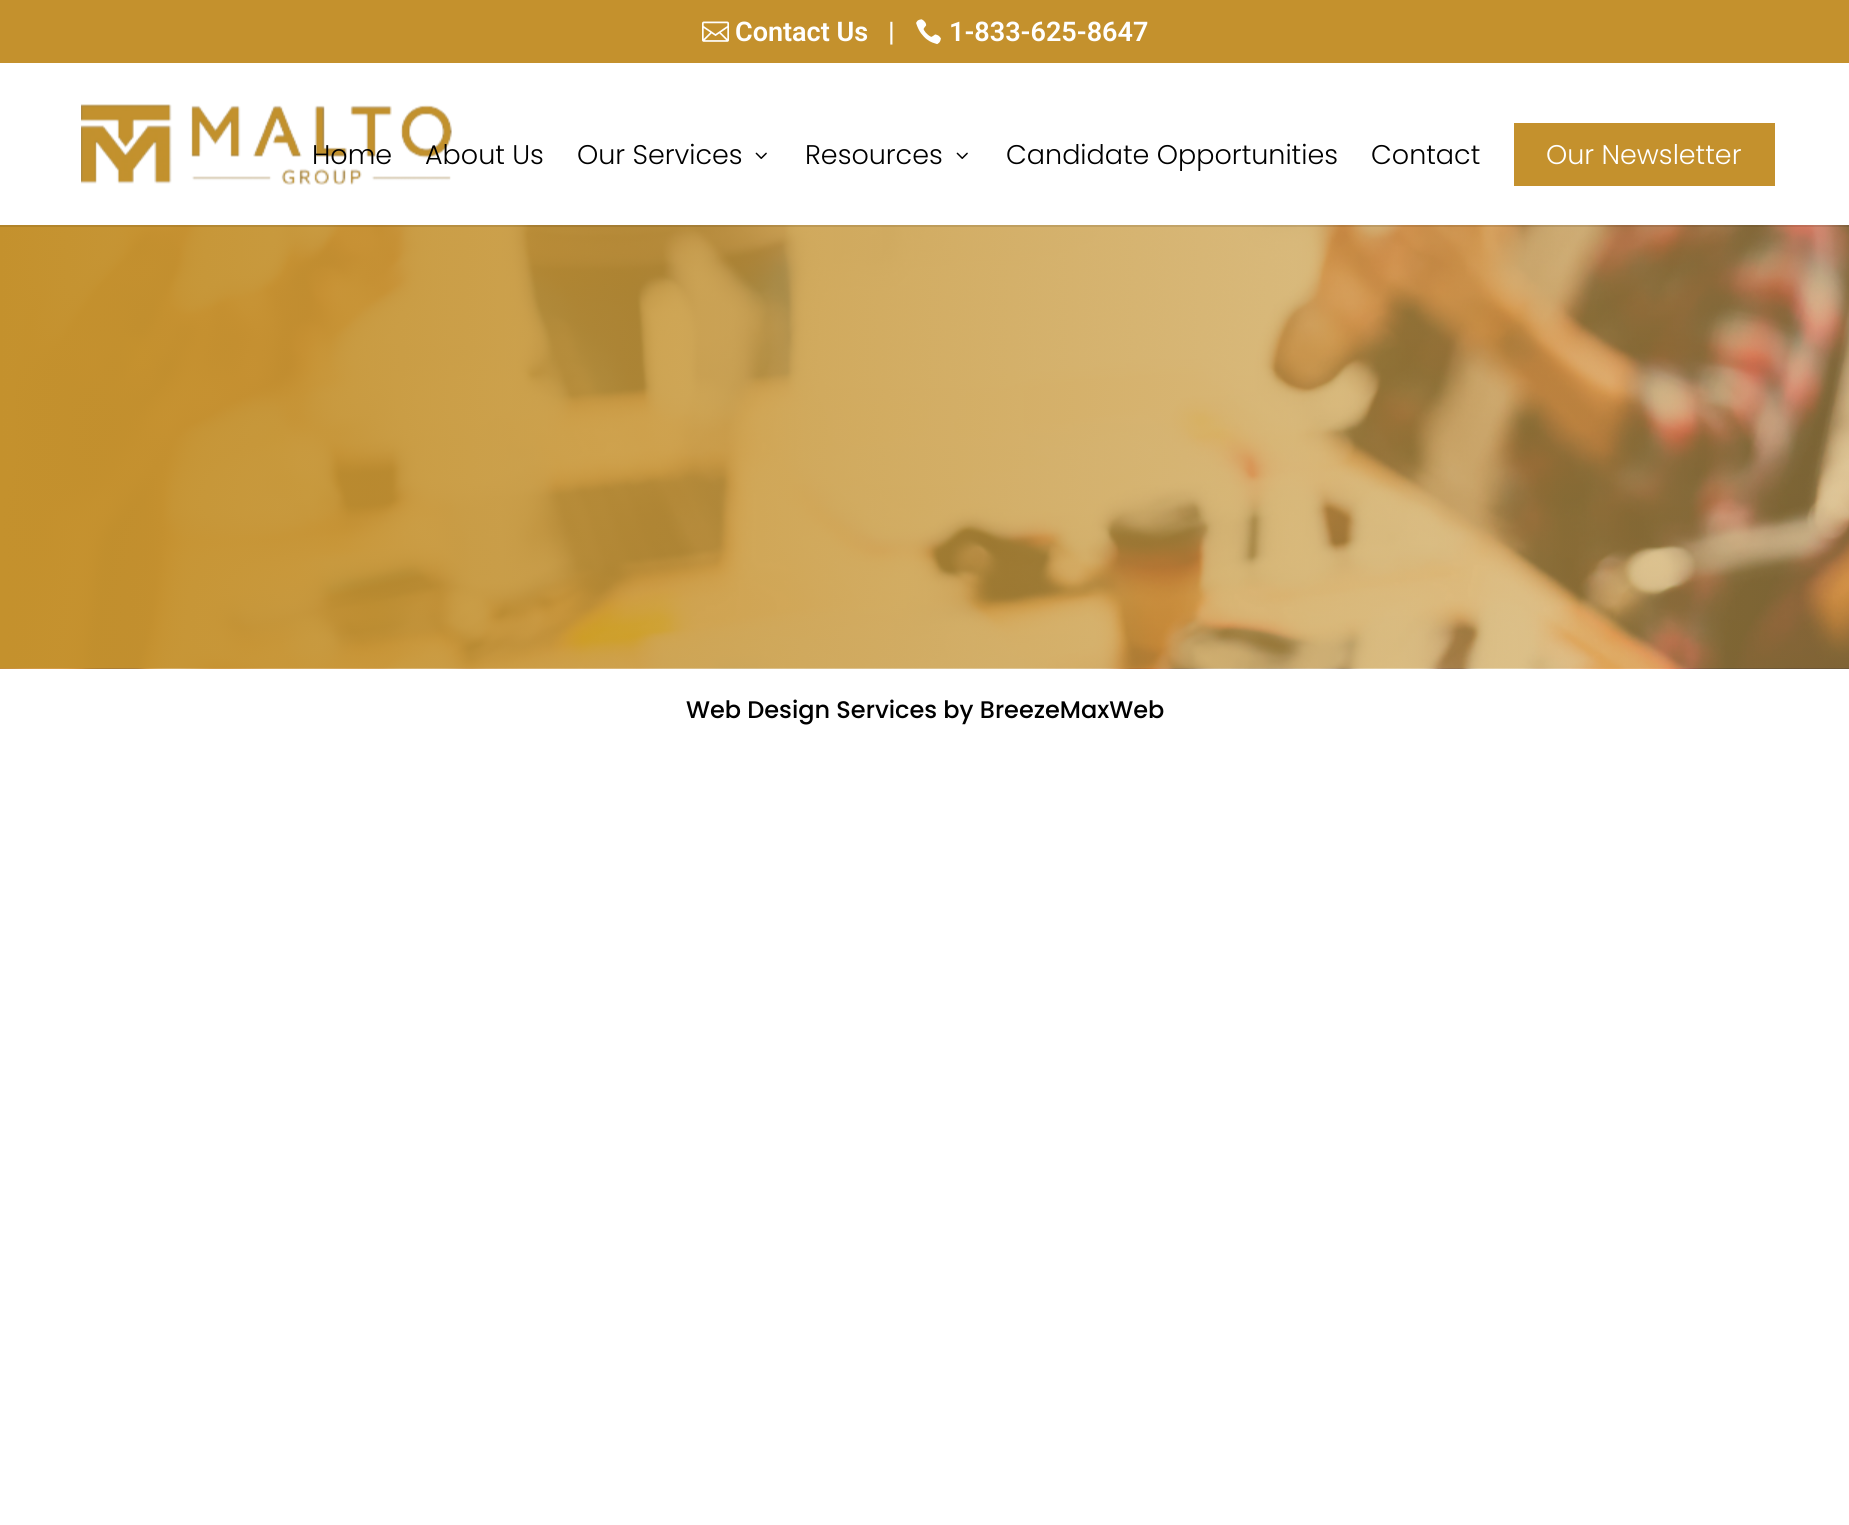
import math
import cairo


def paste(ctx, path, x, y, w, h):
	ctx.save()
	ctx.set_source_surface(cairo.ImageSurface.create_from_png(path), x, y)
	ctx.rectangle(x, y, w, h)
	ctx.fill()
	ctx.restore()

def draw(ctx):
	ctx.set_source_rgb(1, 1, 1)
	ctx.paint()
	paste(ctx, 'media/5.png', 0, 225, 1849, 444)
	ctx.set_source_rgba(0, 0, 0, 0.1)
	ctx.new_path()
	ctx.move_to(0, 225)
	ctx.line_to(0, 227)
	ctx.line_to(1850, 227)
	ctx.line_to(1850, 2)
	ctx.line_to(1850, 225)
	ctx.close_path()
	ctx.fill()
	ctx.set_source_rgb(0.769, 0.569, 0.176)
	ctx.rectangle(0, 0, 1849, 63)
	ctx.fill()
	paste(ctx, 'media/1.png', 702, 21, 27, 21)
	ctx.select_font_face('Roboto SemiBold')
	ctx.set_font_size(27)
	ctx.set_source_rgb(1, 1, 1)
	ctx.move_to(735, 41)
	ctx.show_text('Contact Us')
	ctx.select_font_face('Roboto Medium')
	ctx.move_to(888, 41)
	ctx.show_text('|')
	paste(ctx, 'media/2.png', 916, 19, 25, 26)
	ctx.select_font_face('Roboto SemiBold')
	ctx.move_to(949, 41)
	ctx.show_text('1-833-625-8647')
	paste(ctx, 'media/3.png', 81, 104, 371, 81)
	ctx.select_font_face('Poppins Light')
	ctx.set_source_rgb(0, 0, 0)
	for x, y, s in [
		(312, 164, 'Home'),
		(425, 164, 'About Us'),
		(577, 164, 'Our Services'),
	]:
		ctx.move_to(x, y)
		ctx.show_text(s)
	paste(ctx, 'media/4.png', 755, 152, 12, 7)
	ctx.move_to(805, 164)
	ctx.show_text('Resources')
	paste(ctx, 'media/4.png', 956, 152, 12, 7)
	ctx.move_to(1006, 164)
	ctx.show_text('Candidate Opportunities')
	ctx.move_to(1371, 164)
	ctx.show_text('Contact')
	ctx.set_source_rgb(0.769, 0.569, 0.176)
	ctx.rectangle(1514, 123, 261, 63)
	ctx.fill()
	ctx.set_source_rgb(1, 1, 1)
	ctx.move_to(1546, 164)
	ctx.show_text('Our Newsletter')
	ctx.select_font_face('Poppins Medium')
	ctx.set_font_size(24)
	ctx.set_source_rgb(0, 0, 0)
	ctx.move_to(686, 718)
	ctx.show_text('Web Design Services by BreezeMaxWeb')


surface = cairo.ImageSurface(cairo.FORMAT_RGB24, 1849, 1525)
ctx = cairo.Context(surface)
options = cairo.FontOptions()
options.set_hint_metrics(cairo.HINT_METRICS_OFF)
options.set_hint_style(cairo.HINT_STYLE_NONE)
ctx.set_font_options(options)
ctx.set_miter_limit(4)
draw(ctx)
surface.write_to_png('image.png')
